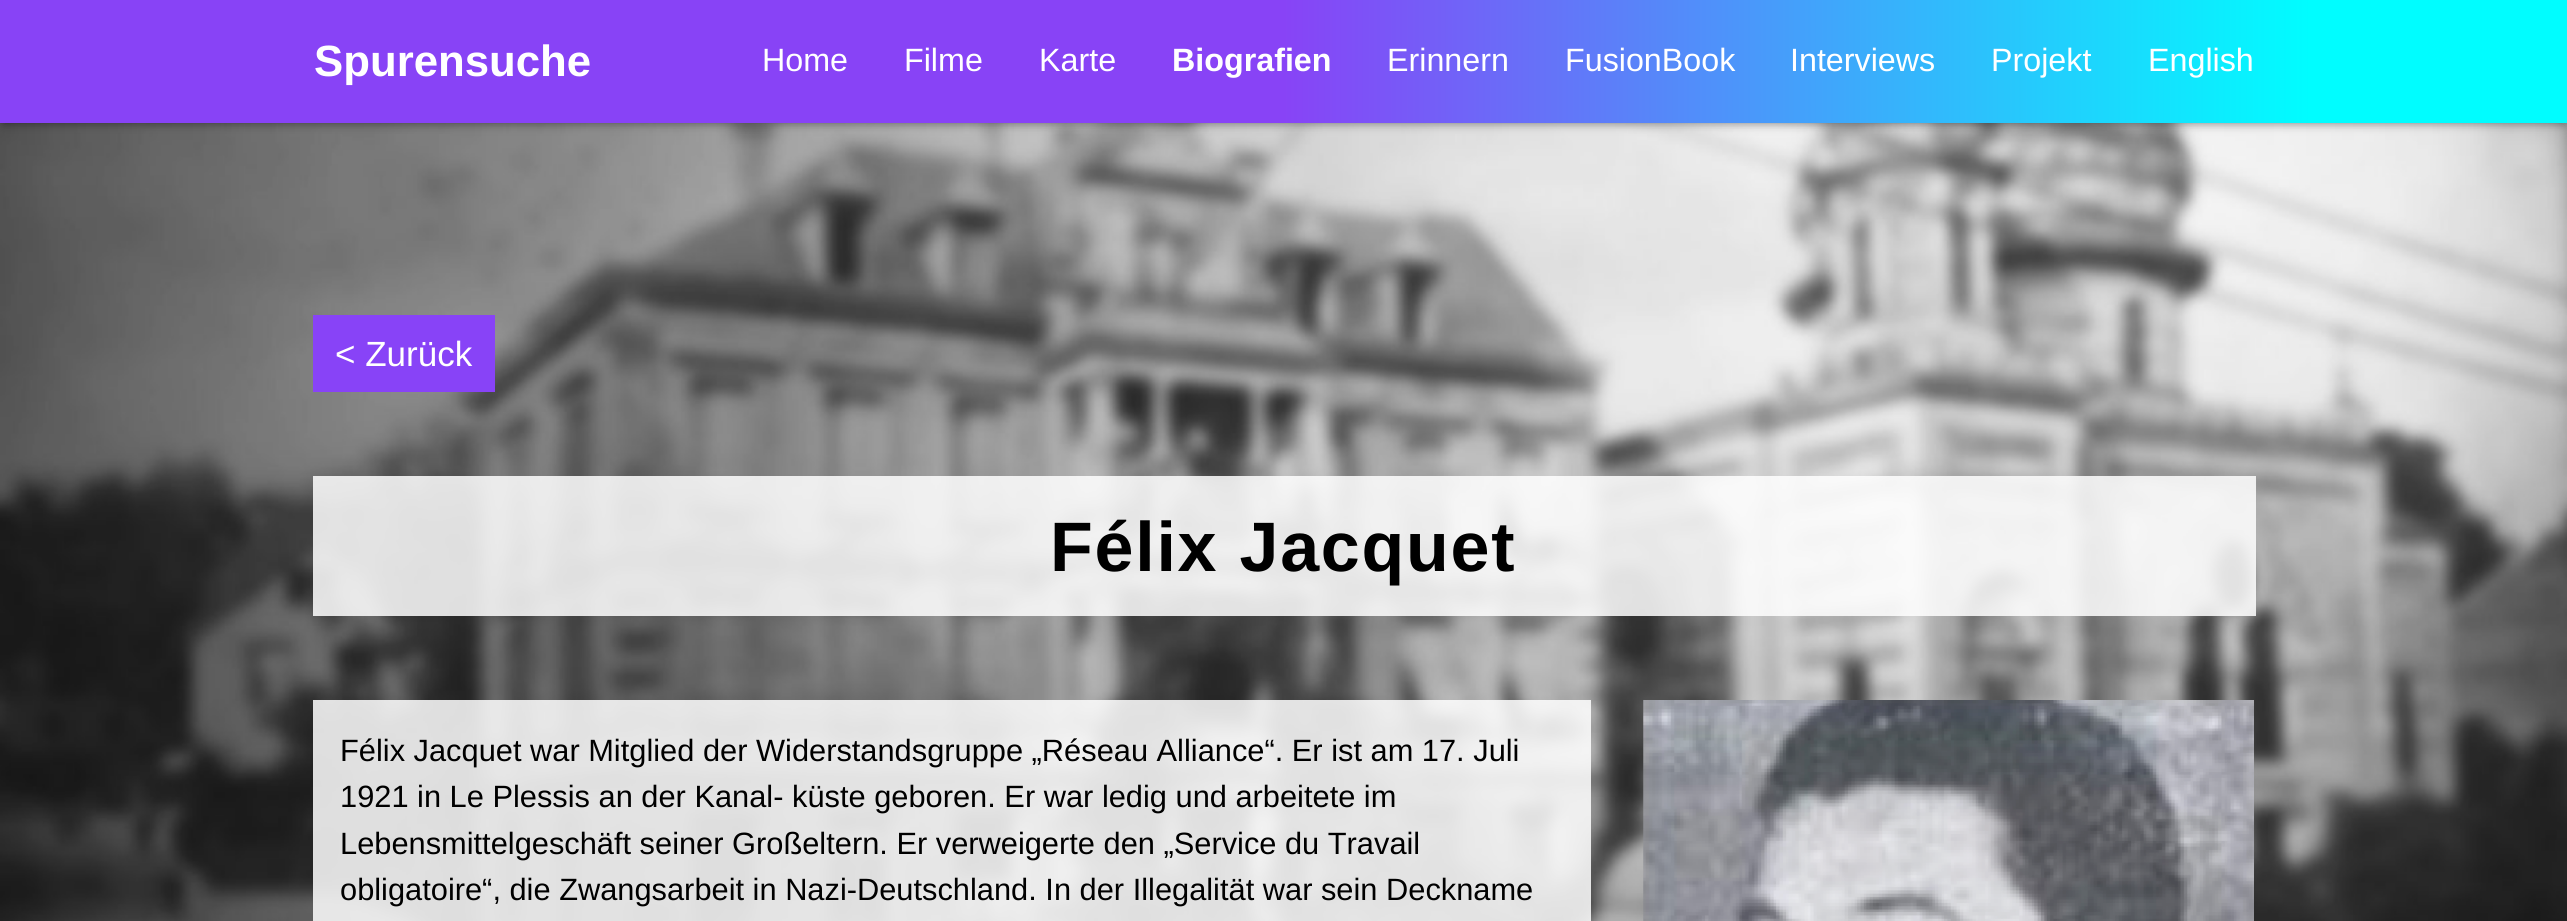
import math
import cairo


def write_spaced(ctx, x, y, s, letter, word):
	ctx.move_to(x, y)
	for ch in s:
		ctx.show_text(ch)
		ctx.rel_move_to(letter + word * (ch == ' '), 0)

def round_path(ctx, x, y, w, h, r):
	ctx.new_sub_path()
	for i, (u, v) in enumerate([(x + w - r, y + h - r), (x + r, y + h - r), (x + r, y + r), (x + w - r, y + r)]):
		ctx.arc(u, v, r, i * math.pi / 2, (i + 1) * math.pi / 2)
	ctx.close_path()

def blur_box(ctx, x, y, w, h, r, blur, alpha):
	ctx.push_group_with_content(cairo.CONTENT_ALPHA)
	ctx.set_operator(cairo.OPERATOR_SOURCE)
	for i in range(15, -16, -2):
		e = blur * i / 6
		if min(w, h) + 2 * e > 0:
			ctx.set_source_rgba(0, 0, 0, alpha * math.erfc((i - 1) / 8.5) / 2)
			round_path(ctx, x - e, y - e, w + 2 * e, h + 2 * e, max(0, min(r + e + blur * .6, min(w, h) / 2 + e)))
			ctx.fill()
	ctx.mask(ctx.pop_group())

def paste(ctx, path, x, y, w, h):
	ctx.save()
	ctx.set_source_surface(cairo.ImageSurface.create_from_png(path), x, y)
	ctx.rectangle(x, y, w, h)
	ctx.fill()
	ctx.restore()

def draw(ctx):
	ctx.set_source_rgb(1, 1, 1)
	ctx.paint()
	paste(ctx, 'media/1.png', 0, 123, 2567, 798)
	ctx.set_source_rgb(0, 0, 0)
	blur_box(ctx, 4, 7, 2560, 116, 0, 5, 0.5)
	gradient = cairo.LinearGradient(0, 61, 2567, 61)
	gradient.add_color_stop_rgba(0.5, 0.533, 0.263, 0.965, 1)
	gradient.add_color_stop_rgba(0.9, 0, 0.992, 1, 1)
	ctx.set_source(gradient)
	ctx.rectangle(0, 0, 2567, 123)
	ctx.fill()
	ctx.select_font_face('Liberation Sans', cairo.FONT_SLANT_NORMAL, cairo.FONT_WEIGHT_BOLD)
	ctx.set_font_size(43.75)
	ctx.set_source_rgb(1, 1, 1)
	ctx.move_to(314, 76)
	ctx.show_text('Spurensuche')
	ctx.select_font_face('Liberation Sans')
	ctx.set_font_size(32.25)
	for x, y, s in [
		(762, 71, 'Home'),
		(904, 71, 'Filme'),
		(1039, 71, 'Karte'),
	]:
		ctx.move_to(x, y)
		ctx.show_text(s)
	ctx.select_font_face('Liberation Sans', cairo.FONT_SLANT_NORMAL, cairo.FONT_WEIGHT_BOLD)
	ctx.move_to(1172, 71)
	ctx.show_text('Biografien')
	ctx.select_font_face('Liberation Sans')
	for x, y, s in [
		(1387, 71, 'Erinnern'),
		(1565, 71, 'FusionBook'),
		(1790, 71, 'Interviews'),
		(1991, 71, 'Projekt'),
		(2148, 71, 'English'),
	]:
		ctx.move_to(x, y)
		ctx.show_text(s)
	ctx.set_source_rgb(0.533, 0.263, 0.965)
	ctx.rectangle(313, 315, 182, 77)
	ctx.fill()
	ctx.set_font_size(35)
	ctx.set_source_rgb(1, 1, 1)
	ctx.move_to(335, 366)
	ctx.show_text('< Zurück')
	ctx.set_source_rgba(1, 1, 1, 0.85)
	ctx.rectangle(313, 476, 1943, 140)
	ctx.fill()
	ctx.select_font_face('Liberation Sans', cairo.FONT_SLANT_NORMAL, cairo.FONT_WEIGHT_BOLD)
	ctx.set_font_size(70)
	ctx.set_source_rgb(0, 0, 0)
	write_spaced(ctx, 1050, 571, 'Félix Jacquet', 1.75, 0)
	ctx.set_source_rgba(1, 1, 1, 0.85)
	ctx.rectangle(313, 700, 1278, 221)
	ctx.fill()
	ctx.select_font_face('Liberation Sans')
	ctx.set_font_size(30.8)
	ctx.set_source_rgb(0, 0, 0)
	for x, y, s in [
		(340, 761, 'Félix Jacquet war Mitglied der Widerstandsgruppe „Réseau Alliance“. Er ist am 17. Juli'),
		(340, 807, '1921 in Le Plessis an der Kanal- küste geboren. Er war ledig und arbeitete im'),
		(340, 854, 'Lebensmittelgeschäft seiner Großeltern. Er verweigerte den „Service du Travail'),
		(340, 900, 'obligatoire“, die Zwangsarbeit in Nazi-Deutschland. In der Illegalität war sein Deckname'),
	]:
		ctx.move_to(x, y)
		ctx.show_text(s)
	paste(ctx, 'media/2.png', 1643, 700, 611, 221)


surface = cairo.ImageSurface(cairo.FORMAT_RGB24, 2567, 921)
ctx = cairo.Context(surface)
options = cairo.FontOptions()
options.set_hint_metrics(cairo.HINT_METRICS_OFF)
options.set_hint_style(cairo.HINT_STYLE_NONE)
ctx.set_font_options(options)
ctx.set_miter_limit(4)
draw(ctx)
surface.write_to_png('image.png')
